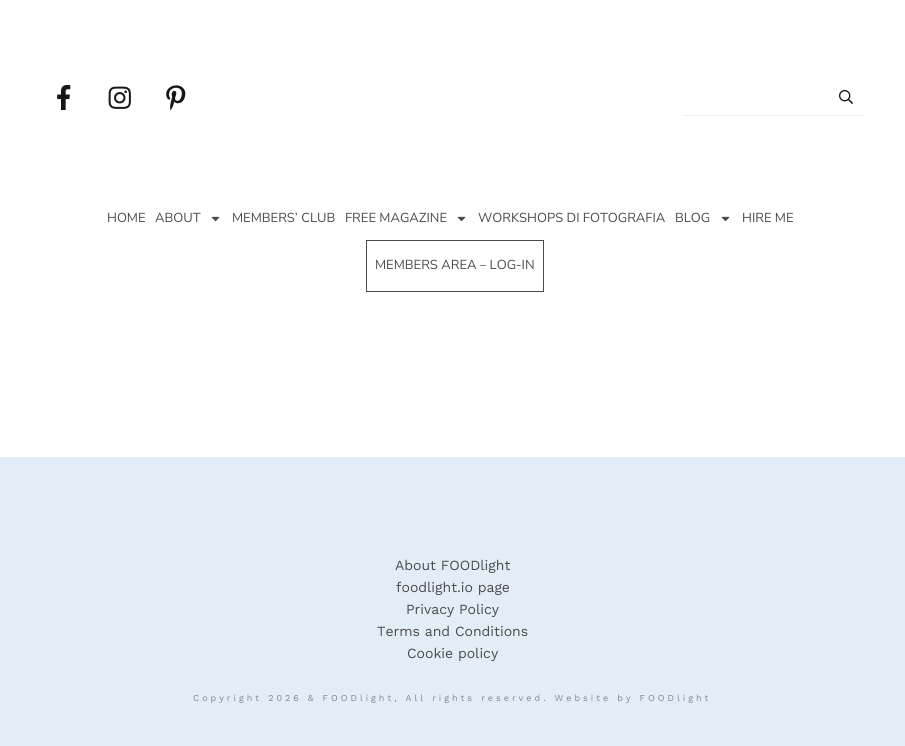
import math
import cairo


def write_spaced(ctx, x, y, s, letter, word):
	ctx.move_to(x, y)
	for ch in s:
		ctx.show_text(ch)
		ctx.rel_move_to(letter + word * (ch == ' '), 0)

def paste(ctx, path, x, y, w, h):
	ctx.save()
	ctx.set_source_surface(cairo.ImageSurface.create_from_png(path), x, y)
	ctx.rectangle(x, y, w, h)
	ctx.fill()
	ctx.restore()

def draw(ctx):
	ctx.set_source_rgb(1, 1, 1)
	ctx.paint()
	paste(ctx, 'media/1.png', 57, 85, 14, 25)
	paste(ctx, 'media/2.png', 108, 86, 23, 23)
	paste(ctx, 'media/3.png', 166, 85, 20, 25)
	ctx.set_source_rgb(0.941, 0.941, 0.941)
	ctx.rectangle(683, 115, 182, 1)
	ctx.fill()
	paste(ctx, 'media/4.png', 839, 90, 14, 14)
	ctx.select_font_face('Nunito Sans')
	ctx.set_font_size(13)
	ctx.set_source_rgb(0.294, 0.294, 0.294)
	ctx.move_to(107, 222)
	ctx.show_text('HOME')
	ctx.move_to(155, 222)
	ctx.show_text('ABOUT')
	paste(ctx, 'media/5.png', 211, 216, 9, 6)
	ctx.move_to(232, 222)
	ctx.show_text('MEMBERS’ CLUB')
	ctx.move_to(345, 222)
	ctx.show_text('FREE MAGAZINE')
	paste(ctx, 'media/5.png', 457, 216, 9, 6)
	ctx.move_to(478, 222)
	ctx.show_text('WORKSHOPS DI FOTOGRAFIA')
	ctx.move_to(675, 222)
	ctx.show_text('BLOG')
	paste(ctx, 'media/5.png', 721, 216, 9, 6)
	ctx.move_to(742, 222)
	ctx.show_text('HIRE ME')
	ctx.rectangle(366.5, 240.5, 177, 51)
	ctx.set_line_width(1)
	ctx.stroke()
	ctx.move_to(375, 269)
	ctx.show_text('MEMBERS AREA – LOG-IN')
	ctx.set_source_rgb(0.89, 0.929, 0.969)
	ctx.rectangle(0, 457, 905, 289)
	ctx.fill()
	ctx.select_font_face('Work Sans')
	ctx.set_font_size(14)
	ctx.set_source_rgb(0.294, 0.294, 0.294)
	for x, y, s in [
		(395, 570, 'About FOODlight'),
		(396, 592, 'foodlight.io page'),
		(406, 614, 'Privacy Policy'),
		(377, 636, 'Terms and Conditions'),
		(407, 658, 'Cookie policy'),
	]:
		ctx.move_to(x, y)
		ctx.show_text(s)
	ctx.set_font_size(9)
	ctx.set_source_rgb(0.514, 0.525, 0.545)
	write_spaced(ctx, 193, 701, 'Copyright 2026 & FOODlight, All rights reserved. Website by FOODlight', 3, 0)


surface = cairo.ImageSurface(cairo.FORMAT_RGB24, 905, 746)
ctx = cairo.Context(surface)
options = cairo.FontOptions()
options.set_hint_metrics(cairo.HINT_METRICS_OFF)
options.set_hint_style(cairo.HINT_STYLE_NONE)
ctx.set_font_options(options)
ctx.set_miter_limit(4)
draw(ctx)
surface.write_to_png('image.png')
